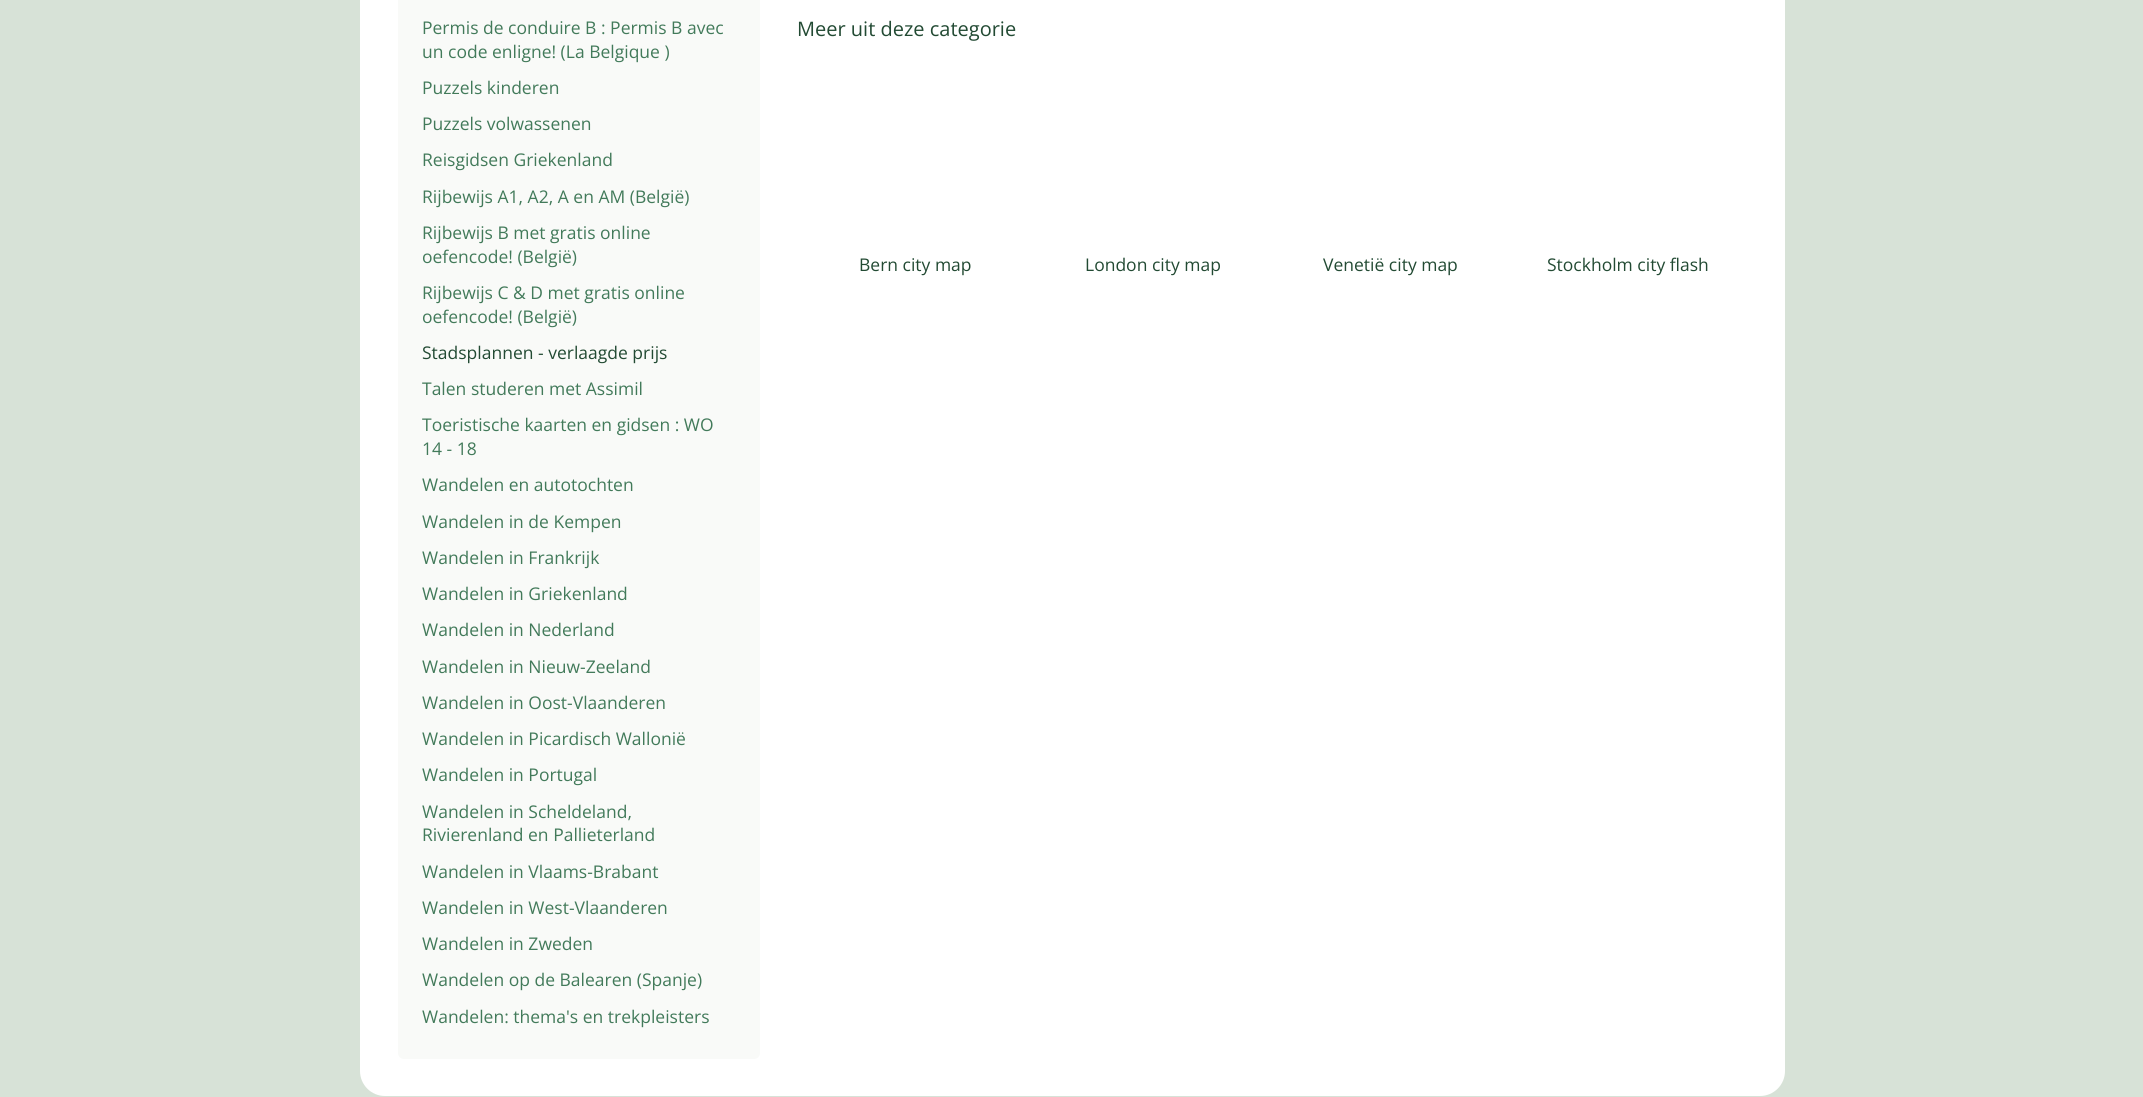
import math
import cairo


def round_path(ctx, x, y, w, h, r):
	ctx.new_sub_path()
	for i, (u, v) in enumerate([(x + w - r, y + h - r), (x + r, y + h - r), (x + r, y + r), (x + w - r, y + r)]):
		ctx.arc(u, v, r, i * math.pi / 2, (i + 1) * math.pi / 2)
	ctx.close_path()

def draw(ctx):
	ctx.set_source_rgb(0.843, 0.886, 0.843)
	ctx.paint()
	ctx.set_source_rgb(1, 1, 1)
	round_path(ctx, 360, -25, 1425, 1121, 25)
	ctx.fill()
	ctx.set_source_rgb(0.973, 0.98, 0.969)
	round_path(ctx, 398, -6, 362, 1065, 6)
	ctx.fill()
	ctx.select_font_face('Open Sans')
	ctx.set_font_size(17.5)
	ctx.set_source_rgb(0.259, 0.478, 0.353)
	for x, y, s in [
		(422, 34, 'Permis de conduire B : Permis B avec'),
		(422, 58, 'un code enligne! (La Belgique )'),
		(422, 94, 'Puzzels kinderen'),
		(422, 130, 'Puzzels volwassenen'),
		(422, 166, 'Reisgidsen Griekenland'),
		(422, 203, 'Rijbewijs A1, A2, A en AM (België)'),
		(422, 239, 'Rijbewijs B met gratis online'),
		(422, 263, 'oefencode! (België)'),
		(422, 299, 'Rijbewijs C & D met gratis online'),
		(422, 323, 'oefencode! (België)'),
	]:
		ctx.move_to(x, y)
		ctx.show_text(s)
	ctx.set_source_rgb(0.133, 0.29, 0.2)
	ctx.move_to(422, 359)
	ctx.show_text('Stadsplannen - verlaagde prijs')
	ctx.set_source_rgb(0.259, 0.478, 0.353)
	for x, y, s in [
		(422, 395, 'Talen studeren met Assimil'),
		(422, 431, 'Toeristische kaarten en gidsen : WO'),
		(422, 455, '14 - 18'),
		(422, 491, 'Wandelen en autotochten'),
		(422, 528, 'Wandelen in de Kempen'),
		(422, 564, 'Wandelen in Frankrijk'),
		(422, 600, 'Wandelen in Griekenland'),
		(422, 636, 'Wandelen in Nederland'),
		(422, 673, 'Wandelen in Nieuw-Zeeland'),
		(422, 709, 'Wandelen in Oost-Vlaanderen'),
		(422, 745, 'Wandelen in Picardisch Wallonië'),
		(422, 781, 'Wandelen in Portugal'),
		(422, 818, 'Wandelen in Scheldeland,'),
		(422, 841, 'Rivierenland en Pallieterland'),
		(422, 878, 'Wandelen in Vlaams-Brabant'),
		(422, 914, 'Wandelen in West-Vlaanderen'),
		(422, 950, 'Wandelen in Zweden'),
		(422, 986, 'Wandelen op de Balearen (Spanje)'),
		(422, 1023, 'Wandelen: thema\'s en trekpleisters'),
	]:
		ctx.move_to(x, y)
		ctx.show_text(s)
	ctx.set_font_size(20)
	ctx.set_source_rgb(0.133, 0.29, 0.2)
	ctx.move_to(797, 36)
	ctx.show_text('Meer uit deze categorie')
	ctx.set_font_size(17.5)
	for x, y, s in [
		(859, 271, 'Bern city map'),
		(1085, 271, 'London city map'),
		(1323, 271, 'Venetië city map'),
		(1547, 271, 'Stockholm city flash'),
	]:
		ctx.move_to(x, y)
		ctx.show_text(s)


surface = cairo.ImageSurface(cairo.FORMAT_RGB24, 2143, 1097)
ctx = cairo.Context(surface)
options = cairo.FontOptions()
options.set_hint_metrics(cairo.HINT_METRICS_OFF)
options.set_hint_style(cairo.HINT_STYLE_NONE)
ctx.set_font_options(options)
ctx.set_miter_limit(4)
draw(ctx)
surface.write_to_png('image.png')
